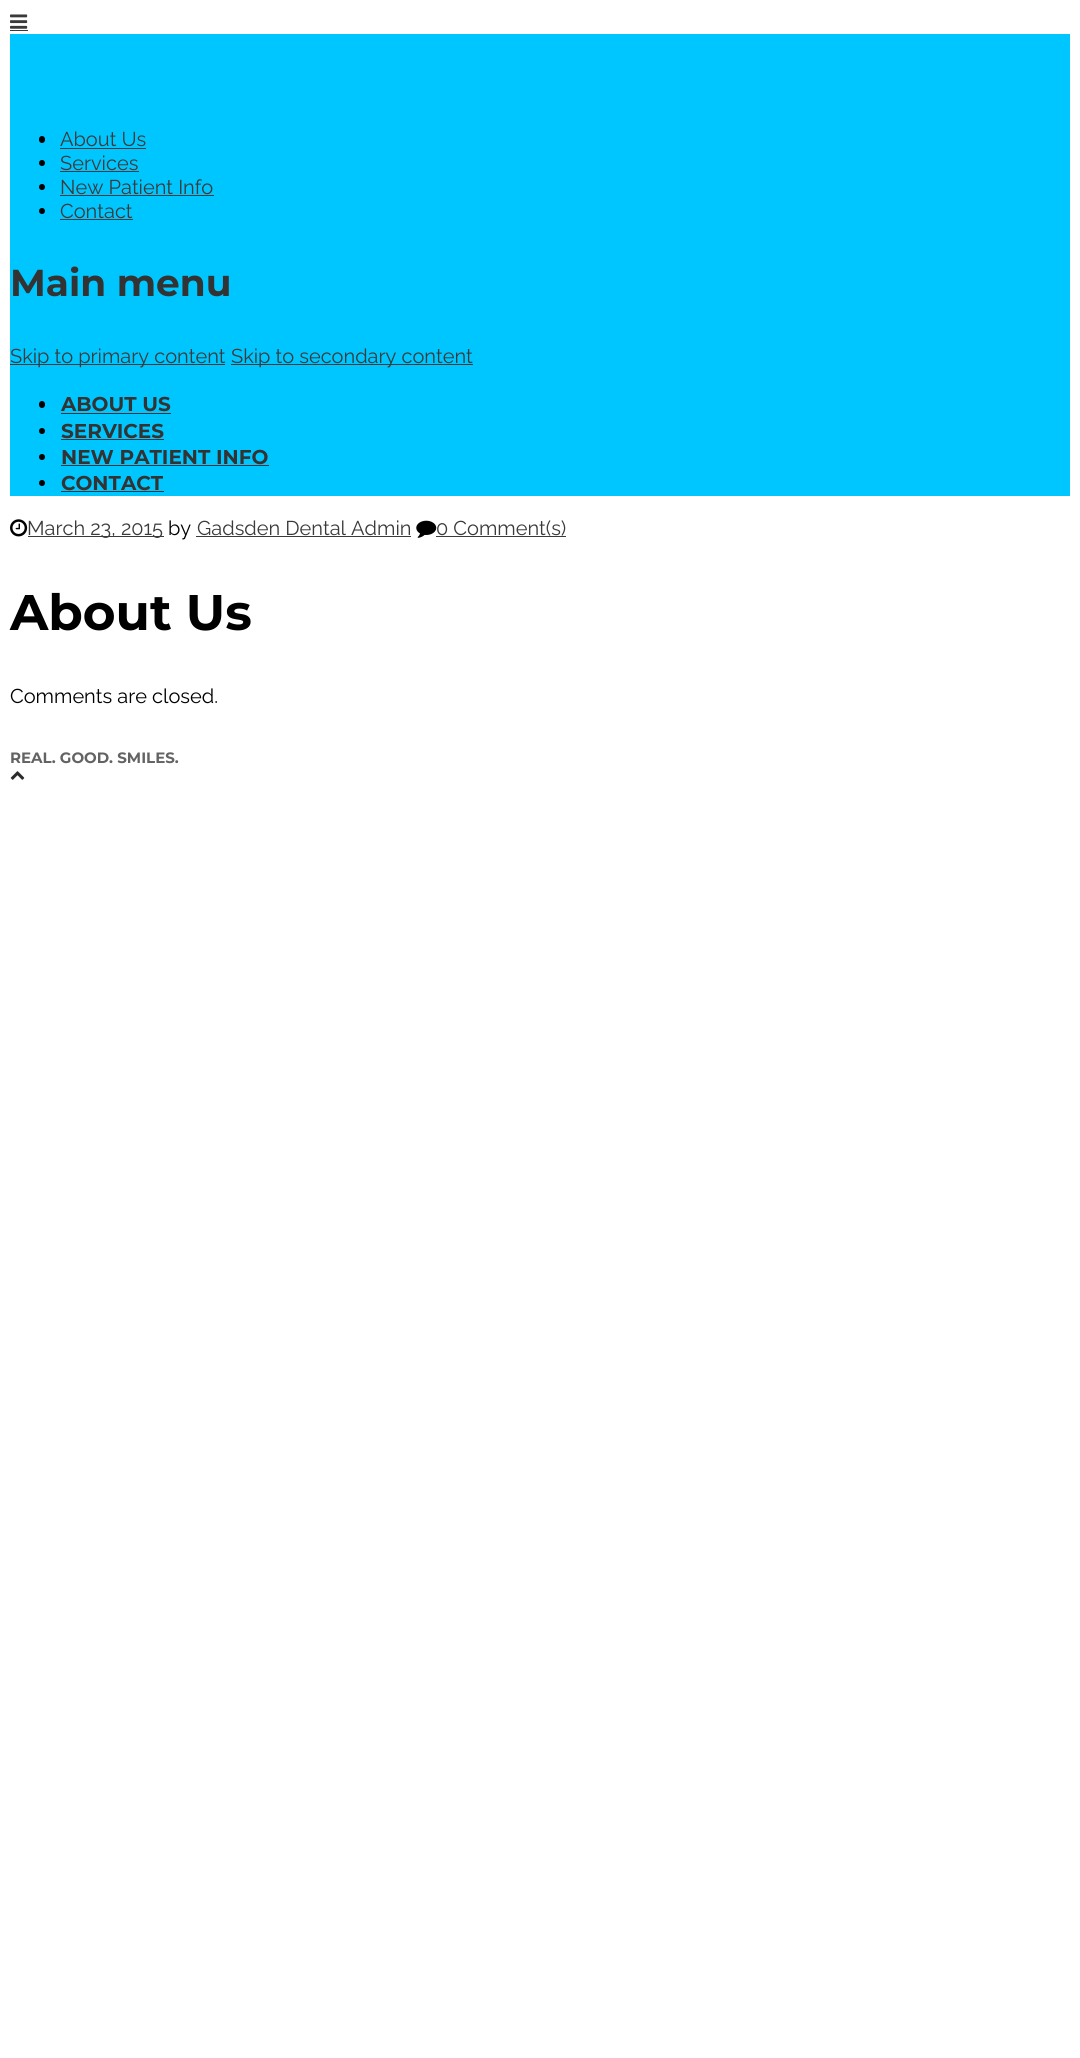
import math
import cairo


def round_path(ctx, x, y, w, h, r):
	ctx.new_sub_path()
	for i, (u, v) in enumerate([(x + w - r, y + h - r), (x + r, y + h - r), (x + r, y + r), (x + w - r, y + r)]):
		ctx.arc(u, v, r, i * math.pi / 2, (i + 1) * math.pi / 2)
	ctx.close_path()

def paste(ctx, path, x, y, w, h):
	ctx.save()
	ctx.set_source_surface(cairo.ImageSurface.create_from_png(path), x, y)
	ctx.rectangle(x, y, w, h)
	ctx.fill()
	ctx.restore()

def draw(ctx):
	ctx.set_source_rgb(1, 1, 1)
	ctx.paint()
	paste(ctx, 'media/1.png', 10, 14, 18, 15)
	ctx.set_source_rgb(0.227, 0.227, 0.227)
	ctx.rectangle(10, 30, 18, 1)
	ctx.fill()
	ctx.set_source_rgb(0, 0.776, 1)
	ctx.rectangle(10, 34, 1060, 462)
	ctx.fill()
	ctx.set_source_rgb(0, 0, 0)
	round_path(ctx, 39, 136, 6, 7, 3)
	ctx.fill()
	ctx.select_font_face('Raleway Thin')
	ctx.set_font_size(20)
	ctx.set_source_rgb(0.227, 0.227, 0.227)
	ctx.move_to(60, 146)
	ctx.show_text('About Us')
	ctx.rectangle(60, 148, 86, 1)
	ctx.fill()
	ctx.set_source_rgb(0, 0, 0)
	ctx.arc(42, 163, 3, 0, 2 * math.pi)
	ctx.fill()
	ctx.set_source_rgb(0.227, 0.227, 0.227)
	ctx.move_to(60, 170)
	ctx.show_text('Services')
	ctx.rectangle(60, 171, 79, 1)
	ctx.fill()
	ctx.set_source_rgb(0, 0, 0)
	ctx.arc(42, 187, 3, 0, 2 * math.pi)
	ctx.fill()
	ctx.set_source_rgb(0.227, 0.227, 0.227)
	ctx.move_to(60, 194)
	ctx.show_text('New Patient Info')
	ctx.rectangle(60, 195, 154, 1)
	ctx.fill()
	ctx.set_source_rgb(0, 0, 0)
	ctx.arc(42, 211, 3, 0, 2 * math.pi)
	ctx.fill()
	ctx.set_source_rgb(0.227, 0.227, 0.227)
	ctx.move_to(60, 218)
	ctx.show_text('Contact')
	ctx.rectangle(60, 219, 73, 1)
	ctx.fill()
	ctx.select_font_face('Montserrat Thin')
	ctx.set_font_size(37.5)
	ctx.set_source_rgb(0.2, 0.2, 0.2)
	ctx.move_to(10, 296)
	ctx.show_text('Main menu')
	ctx.set_source_rgb(0.227, 0.227, 0.227)
	ctx.rectangle(10, 364, 215, 1)
	ctx.fill()
	ctx.select_font_face('Raleway Thin')
	ctx.set_font_size(20)
	ctx.move_to(10, 363)
	ctx.show_text('Skip to primary content')
	ctx.rectangle(231, 364, 242, 1)
	ctx.fill()
	ctx.move_to(231, 363)
	ctx.show_text('Skip to secondary content')
	ctx.set_source_rgb(0, 0, 0)
	round_path(ctx, 39, 401, 6, 7, 3)
	ctx.fill()
	ctx.select_font_face('Montserrat Thin')
	ctx.set_source_rgb(0.2, 0.2, 0.2)
	ctx.move_to(61, 411)
	ctx.show_text('ABOUT US')
	ctx.rectangle(61, 413, 110, 1)
	ctx.fill()
	ctx.set_source_rgb(0, 0, 0)
	ctx.arc(42, 431, 3, 0, 2 * math.pi)
	ctx.fill()
	ctx.set_source_rgb(0.2, 0.2, 0.2)
	ctx.move_to(61, 438)
	ctx.show_text('SERVICES')
	ctx.rectangle(61, 439, 103, 1)
	ctx.fill()
	ctx.set_source_rgb(0, 0, 0)
	ctx.arc(42, 457, 3, 0, 2 * math.pi)
	ctx.fill()
	ctx.set_source_rgb(0.2, 0.2, 0.2)
	ctx.move_to(61, 464)
	ctx.show_text('NEW PATIENT INFO')
	ctx.rectangle(61, 465, 208, 1)
	ctx.fill()
	ctx.set_source_rgb(0, 0, 0)
	ctx.arc(42, 483, 3, 0, 2 * math.pi)
	ctx.fill()
	ctx.set_source_rgb(0.2, 0.2, 0.2)
	ctx.move_to(61, 490)
	ctx.show_text('CONTACT')
	ctx.rectangle(61, 491, 103, 1)
	ctx.fill()
	paste(ctx, 'media/2.png', 10, 519, 18, 18)
	ctx.set_source_rgb(0.227, 0.227, 0.227)
	ctx.rectangle(28, 536, 136, 1)
	ctx.fill()
	ctx.select_font_face('Raleway Thin')
	ctx.move_to(27, 535)
	ctx.show_text('March 23, 2015')
	ctx.set_source_rgb(0, 0, 0)
	ctx.move_to(168, 535)
	ctx.show_text('by')
	ctx.set_source_rgb(0.227, 0.227, 0.227)
	ctx.rectangle(196, 536, 215, 1)
	ctx.fill()
	ctx.move_to(197, 535)
	ctx.show_text('Gadsden Dental Admin')
	paste(ctx, 'media/3.png', 416, 520, 21, 18)
	ctx.move_to(436, 535)
	ctx.show_text('0 Comment(s)')
	ctx.rectangle(436, 536, 130, 1)
	ctx.fill()
	ctx.select_font_face('Montserrat Thin')
	ctx.set_font_size(50)
	ctx.set_source_rgb(0, 0, 0)
	ctx.move_to(10, 630)
	ctx.show_text('About Us')
	ctx.select_font_face('Raleway Thin')
	ctx.set_font_size(20)
	ctx.move_to(10, 703)
	ctx.show_text('Comments are closed.')
	ctx.select_font_face('Montserrat Thin')
	ctx.set_font_size(15)
	ctx.set_source_rgb(0.388, 0.388, 0.388)
	ctx.move_to(10, 763)
	ctx.show_text('REAL. GOOD. SMILES.')
	paste(ctx, 'media/4.png', 10, 771, 15, 9)


surface = cairo.ImageSurface(cairo.FORMAT_RGB24, 1080, 2058)
ctx = cairo.Context(surface)
options = cairo.FontOptions()
options.set_hint_metrics(cairo.HINT_METRICS_OFF)
options.set_hint_style(cairo.HINT_STYLE_NONE)
ctx.set_font_options(options)
ctx.set_miter_limit(4)
draw(ctx)
surface.write_to_png('image.png')
